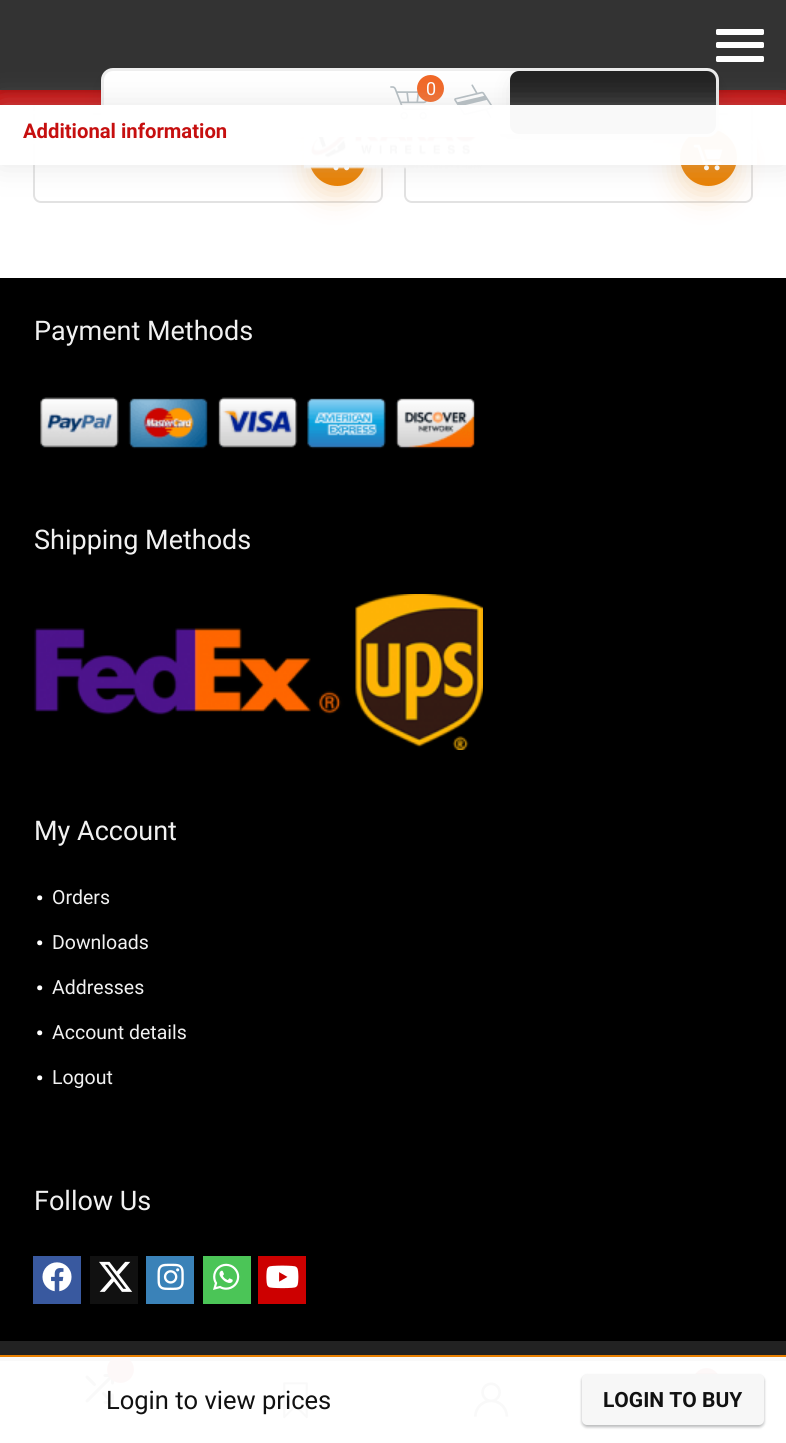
import math
import cairo


def round_path(ctx, x, y, w, h, r):
	ctx.new_sub_path()
	for i, (u, v) in enumerate([(x + w - r, y + h - r), (x + r, y + h - r), (x + r, y + r), (x + w - r, y + r)]):
		ctx.arc(u, v, r, i * math.pi / 2, (i + 1) * math.pi / 2)
	ctx.close_path()

def blur_box(ctx, x, y, w, h, r, blur, alpha):
	ctx.push_group_with_content(cairo.CONTENT_ALPHA)
	ctx.set_operator(cairo.OPERATOR_SOURCE)
	for i in range(15, -16, -2):
		e = blur * i / 6
		if min(w, h) + 2 * e > 0:
			ctx.set_source_rgba(0, 0, 0, alpha * math.erfc((i - 1) / 8.5) / 2)
			round_path(ctx, x - e, y - e, w + 2 * e, h + 2 * e, max(0, min(r + e + blur * .6, min(w, h) / 2 + e)))
			ctx.fill()
	ctx.mask(ctx.pop_group())

def paste(ctx, path, x, y, w, h):
	ctx.save()
	ctx.set_source_surface(cairo.ImageSurface.create_from_png(path), x, y)
	ctx.rectangle(x, y, w, h)
	ctx.fill()
	ctx.restore()

def draw(ctx):
	ctx.set_source_rgb(1, 1, 1)
	ctx.paint()
	round_path(ctx, 34, -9, 348, 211, 7)
	ctx.set_source_rgb(0.886, 0.886, 0.886)
	ctx.stroke()
	ctx.set_source_rgb(0.941, 0.941, 0.941)
	ctx.rectangle(35, 113, 66, 2)
	ctx.fill()
	ctx.set_source_rgb(0.91, 0.498, 0)
	blur_box(ctx, 308, 138, 57, 57, 28.5, 14, 0.25)
	ctx.set_source_rgb(0.91, 0.498, 0)
	ctx.arc(337.5, 157.5, 28.5, 0, 2 * math.pi)
	ctx.fill()
	paste(ctx, 'media/3.png', 333, 167, 17, 4)
	round_path(ctx, 405, -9, 347, 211, 7)
	ctx.set_source_rgb(0.886, 0.886, 0.886)
	ctx.stroke()
	ctx.set_source_rgba(0.808, 0.808, 0.808, 0.3)
	ctx.rectangle(719, 113, 33, 2)
	ctx.fill()
	ctx.set_source_rgb(0.91, 0.498, 0)
	blur_box(ctx, 678, 138, 57, 57, 28.5, 14, 0.25)
	ctx.set_source_rgb(0.91, 0.498, 0)
	ctx.arc(708.5, 157.5, 28.5, 0, 2 * math.pi)
	ctx.fill()
	paste(ctx, 'media/4.png', 693, 144, 30, 27)
	ctx.set_source_rgb(0.776, 0.059, 0.059)
	ctx.rectangle(0, 90, 786, 15)
	ctx.fill()
	ctx.set_source_rgb(0, 0, 0)
	blur_box(ctx, 0, 3, 786, 90, 0, 4, 0.15)
	ctx.set_source_rgb(0.2, 0.2, 0.2)
	ctx.rectangle(0, 0, 786, 90)
	ctx.fill()
	ctx.set_source_rgb(1, 1, 1)
	round_path(ctx, 716, 42, 48, 6, 1.5)
	ctx.fill()
	round_path(ctx, 716, 56, 48, 6, 1.5)
	ctx.fill()
	paste(ctx, 'media/5.png', 725, 114, 28, 30)
	paste(ctx, 'media/6.png', 303, 137, 180, 32)
	ctx.set_source_rgb(0, 0, 0)
	blur_box(ctx, 107, 80, 606, 57, 6, 12, 0.12)
	ctx.set_source_rgb(1, 1, 1)
	round_path(ctx, 102.5, 69.5, 615, 66, 10.5)
	ctx.fill_preserve()
	ctx.set_source_rgb(0.933, 0.933, 0.933)
	ctx.set_line_width(3)
	ctx.stroke()
	paste(ctx, 'media/1.png', 390, 86, 39, 34)
	ctx.set_source_rgb(0.945, 0.404, 0.149)
	ctx.arc(430.5, 88.5, 13.5, 0, 2 * math.pi)
	ctx.fill()
	ctx.select_font_face('Roboto')
	ctx.set_font_size(18)
	ctx.set_source_rgb(1, 1, 1)
	ctx.move_to(426, 95)
	ctx.show_text('0')
	paste(ctx, 'media/2.png', 454, 84, 39, 34)
	ctx.set_source_rgb(0, 0, 0)
	blur_box(ctx, 516, 83, 194, 51, 3, 12, 0.12)
	ctx.set_source_rgb(0.133, 0.133, 0.133)
	round_path(ctx, 510, 71, 206, 63, 9)
	ctx.fill()
	ctx.new_path()
	ctx.move_to(14, 112.5)
	ctx.line_to(58, 112.5)
	ctx.move_to(14, 127.5)
	ctx.line_to(39.5, 127.5)
	ctx.move_to(14, 142.5)
	ctx.line_to(53, 142.5)
	ctx.set_source_rgb(1, 1, 1)
	ctx.set_line_width(3.4)
	ctx.set_line_cap(cairo.LINE_CAP_ROUND)
	ctx.stroke()
	ctx.save()
	ctx.set_fill_rule(cairo.FILL_RULE_EVEN_ODD)
	ctx.new_path()
	ctx.move_to(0, 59)
	ctx.line_to(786, 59)
	ctx.line_to(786, 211)
	ctx.line_to(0, 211)
	ctx.close_path()
	ctx.move_to(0, 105)
	ctx.line_to(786, 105)
	ctx.line_to(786, 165)
	ctx.line_to(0, 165)
	ctx.close_path()
	ctx.clip()
	ctx.set_source_rgb(0.733, 0.733, 0.733)
	blur_box(ctx, 0, 105, 786, 60, 0, 15, 0.36)
	ctx.restore()
	ctx.set_source_rgba(1, 1, 1, 0.97)
	ctx.rectangle(33, 105, 724, 60)
	ctx.fill()
	ctx.select_font_face('Roboto', cairo.FONT_SLANT_NORMAL, cairo.FONT_WEIGHT_BOLD)
	ctx.set_font_size(20.25)
	ctx.set_source_rgb(0.776, 0.059, 0.059)
	ctx.move_to(23, 138)
	ctx.show_text('Additional information')
	ctx.set_source_rgb(1, 1, 1)
	round_path(ctx, 716, 29, 48, 6, 1.5)
	ctx.fill()
	ctx.set_source_rgb(0, 0, 0)
	ctx.rectangle(0, 278, 786, 1063)
	ctx.fill()
	ctx.set_source_rgb(0.133, 0.133, 0.133)
	ctx.rectangle(0, 1341, 786, 20)
	ctx.fill()
	ctx.set_source_rgb(0, 0, 0)
	blur_box(ctx, 0, 1361, 786, 82, 0, 7, 0.12)
	ctx.set_source_rgb(1, 1, 1)
	ctx.rectangle(0, 1361, 786, 82)
	ctx.fill()
	paste(ctx, 'media/7.png', 85, 1374, 29, 30)
	ctx.set_source_rgb(0.776, 0.059, 0.059)
	ctx.arc(120.5, 1369.5, 13.5, 0, 2 * math.pi)
	ctx.fill()
	paste(ctx, 'media/8.png', 283, 1382, 25, 37)
	paste(ctx, 'media/9.png', 474, 1382, 35, 35)
	ctx.arc(706.5, 1381.5, 13.5, 0, 2 * math.pi)
	ctx.fill()
	ctx.select_font_face('Roboto')
	ctx.set_font_size(27)
	ctx.set_source_rgb(0.945, 0.945, 0.945)
	ctx.move_to(34, 340)
	ctx.show_text('Payment Methods')
	paste(ctx, 'media/10.png', 40, 397, 435, 52)
	ctx.move_to(34, 549)
	ctx.show_text('Shipping Methods')
	paste(ctx, 'media/11.png', 34, 594, 449, 156)
	ctx.move_to(34, 840)
	ctx.show_text('My Account')
	ctx.set_font_size(45)
	ctx.set_source_rgb(1, 1, 1)
	ctx.move_to(34, 900)
	ctx.show_text('.')
	ctx.set_font_size(19.5)
	ctx.set_source_rgb(0.945, 0.945, 0.945)
	ctx.move_to(52, 904)
	ctx.show_text('Orders')
	ctx.set_font_size(45)
	ctx.set_source_rgb(1, 1, 1)
	ctx.move_to(34, 945)
	ctx.show_text('.')
	ctx.set_font_size(19.5)
	ctx.set_source_rgb(0.945, 0.945, 0.945)
	ctx.move_to(52, 949)
	ctx.show_text('Downloads')
	ctx.set_font_size(45)
	ctx.set_source_rgb(1, 1, 1)
	ctx.move_to(34, 990)
	ctx.show_text('.')
	ctx.set_font_size(19.5)
	ctx.set_source_rgb(0.945, 0.945, 0.945)
	ctx.move_to(52, 994)
	ctx.show_text('Addresses')
	ctx.set_font_size(45)
	ctx.set_source_rgb(1, 1, 1)
	ctx.move_to(34, 1035)
	ctx.show_text('.')
	ctx.set_font_size(19.5)
	ctx.set_source_rgb(0.945, 0.945, 0.945)
	ctx.move_to(52, 1039)
	ctx.show_text('Account details')
	ctx.set_font_size(45)
	ctx.set_source_rgb(1, 1, 1)
	ctx.move_to(34, 1080)
	ctx.show_text('.')
	ctx.set_font_size(19.5)
	ctx.set_source_rgb(0.945, 0.945, 0.945)
	ctx.move_to(52, 1084)
	ctx.show_text('Logout')
	ctx.set_font_size(27)
	ctx.move_to(34, 1210)
	ctx.show_text('Follow Us')
	ctx.set_source_rgb(0.224, 0.349, 0.624)
	ctx.rectangle(33, 1256, 48, 48)
	ctx.fill()
	paste(ctx, 'media/12.png', 42, 1262, 30, 30)
	ctx.set_source_rgb(0.067, 0.067, 0.067)
	ctx.rectangle(90, 1256, 48, 48)
	ctx.fill()
	paste(ctx, 'media/13.png', 99, 1261, 34, 31)
	ctx.set_source_rgb(0.227, 0.51, 0.722)
	ctx.rectangle(146, 1256, 48, 48)
	ctx.fill()
	paste(ctx, 'media/14.png', 157, 1263, 27, 27)
	ctx.set_source_rgb(0.294, 0.773, 0.341)
	ctx.rectangle(203, 1256, 48, 48)
	ctx.fill()
	paste(ctx, 'media/15.png', 213, 1263, 27, 27)
	ctx.set_source_rgb(0.804, 0, 0)
	ctx.rectangle(258, 1256, 48, 48)
	ctx.fill()
	paste(ctx, 'media/16.png', 266, 1265, 33, 24)
	ctx.set_source_rgba(1, 1, 1, 0.97)
	ctx.rectangle(0, 1357, 786, 62)
	ctx.fill()
	ctx.set_source_rgb(0.91, 0.498, 0)
	ctx.rectangle(0, 1355, 786, 2)
	ctx.fill()
	ctx.set_font_size(25.5)
	ctx.set_source_rgb(0.067, 0.067, 0.067)
	ctx.move_to(106, 1409)
	ctx.show_text('Login to view prices')
	ctx.set_source_rgb(0, 0, 0)
	blur_box(ctx, 582, 1376, 182, 51, 5, 1.5, 0.08)
	ctx.set_source_rgb(0.235, 0.251, 0.263)
	blur_box(ctx, 582, 1376, 182, 51, 5, 1.5, 0.3)
	ctx.set_source_rgb(0.965, 0.965, 0.965)
	round_path(ctx, 582, 1374, 182, 51, 5)
	ctx.fill()
	ctx.select_font_face('Roboto', cairo.FONT_SLANT_NORMAL, cairo.FONT_WEIGHT_BOLD)
	ctx.set_font_size(21)
	ctx.set_source_rgb(0.067, 0.067, 0.067)
	ctx.move_to(603, 1407)
	ctx.show_text('LOGIN TO BUY')


surface = cairo.ImageSurface(cairo.FORMAT_RGB24, 786, 1443)
ctx = cairo.Context(surface)
options = cairo.FontOptions()
options.set_hint_metrics(cairo.HINT_METRICS_OFF)
options.set_hint_style(cairo.HINT_STYLE_NONE)
ctx.set_font_options(options)
ctx.set_miter_limit(4)
draw(ctx)
surface.write_to_png('image.png')
